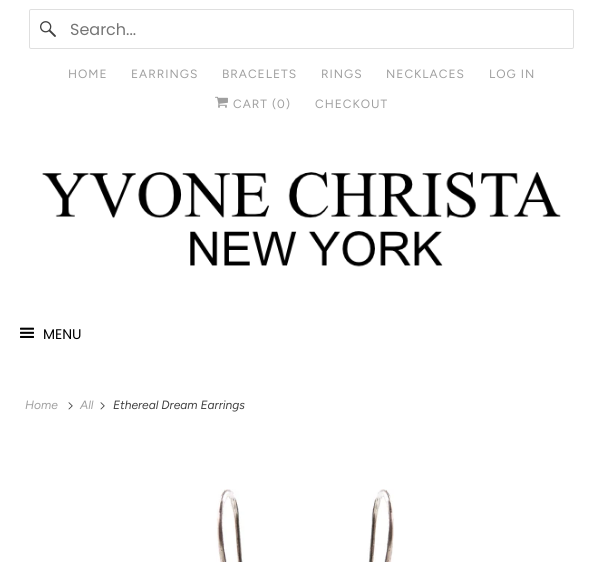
import math
import cairo


def write_spaced(ctx, x, y, s, letter, word):
	ctx.move_to(x, y)
	for ch in s:
		ctx.show_text(ch)
		ctx.rel_move_to(letter + word * (ch == ' '), 0)

def round_path(ctx, x, y, w, h, r):
	ctx.new_sub_path()
	for i, (u, v) in enumerate([(x + w - r, y + h - r), (x + r, y + h - r), (x + r, y + r), (x + w - r, y + r)]):
		ctx.arc(u, v, r, i * math.pi / 2, (i + 1) * math.pi / 2)
	ctx.close_path()

def paste(ctx, path, x, y, w, h):
	ctx.save()
	ctx.set_source_surface(cairo.ImageSurface.create_from_png(path), x, y)
	ctx.rectangle(x, y, w, h)
	ctx.fill()
	ctx.restore()

def draw(ctx):
	ctx.set_source_rgb(1, 1, 1)
	ctx.paint()
	round_path(ctx, 29.5, 9.5, 544, 39, 1.5)
	ctx.set_source_rgb(0.875, 0.875, 0.875)
	ctx.set_line_width(1)
	ctx.stroke()
	paste(ctx, 'media/1.png', 40, 21, 16, 16)
	ctx.select_font_face('Poppins')
	ctx.set_font_size(16)
	ctx.set_source_rgb(0.459, 0.459, 0.459)
	ctx.move_to(70, 35)
	ctx.show_text('Search...')
	ctx.select_font_face('Figtree')
	ctx.set_font_size(12)
	ctx.set_source_rgb(0.624, 0.624, 0.624)
	for x, y, s in [
		(68, 78, 'HOME'),
		(131, 78, 'EARRINGS'),
		(222, 78, 'BRACELETS'),
		(321, 78, 'RINGS'),
		(386, 78, 'NECKLACES'),
		(489, 78, 'LOG IN'),
	]:
		write_spaced(ctx, x, y, s, 1, 0)
	paste(ctx, 'media/2.png', 215, 96, 13, 12)
	write_spaced(ctx, 233, 108, 'CART (0)', 1, 0)
	write_spaced(ctx, 315, 108, 'CHECKOUT', 1, 0)
	paste(ctx, 'media/3.png', 42, 172, 519, 95)
	paste(ctx, 'media/4.png', 20, 327, 14, 11)
	ctx.select_font_face('Poppins')
	ctx.set_font_size(14)
	ctx.set_source_rgb(0, 0, 0)
	ctx.move_to(43, 339)
	ctx.show_text('MENU')
	ctx.select_font_face('Figtree', cairo.FONT_SLANT_ITALIC)
	ctx.set_font_size(12)
	ctx.set_source_rgb(0.624, 0.624, 0.624)
	ctx.move_to(25, 409)
	ctx.show_text('Home')
	paste(ctx, 'media/5.png', 68, 402, 5, 8)
	ctx.move_to(80, 409)
	ctx.show_text('All')
	paste(ctx, 'media/5.png', 100, 402, 5, 8)
	ctx.set_source_rgb(0.251, 0.251, 0.251)
	ctx.move_to(113, 409)
	ctx.show_text('Ethereal Dream Earrings')
	paste(ctx, 'media/6.png', 216, 489, 178, 73)


surface = cairo.ImageSurface(cairo.FORMAT_RGB24, 603, 562)
ctx = cairo.Context(surface)
options = cairo.FontOptions()
options.set_hint_metrics(cairo.HINT_METRICS_OFF)
options.set_hint_style(cairo.HINT_STYLE_NONE)
ctx.set_font_options(options)
ctx.set_miter_limit(4)
draw(ctx)
surface.write_to_png('image.png')
